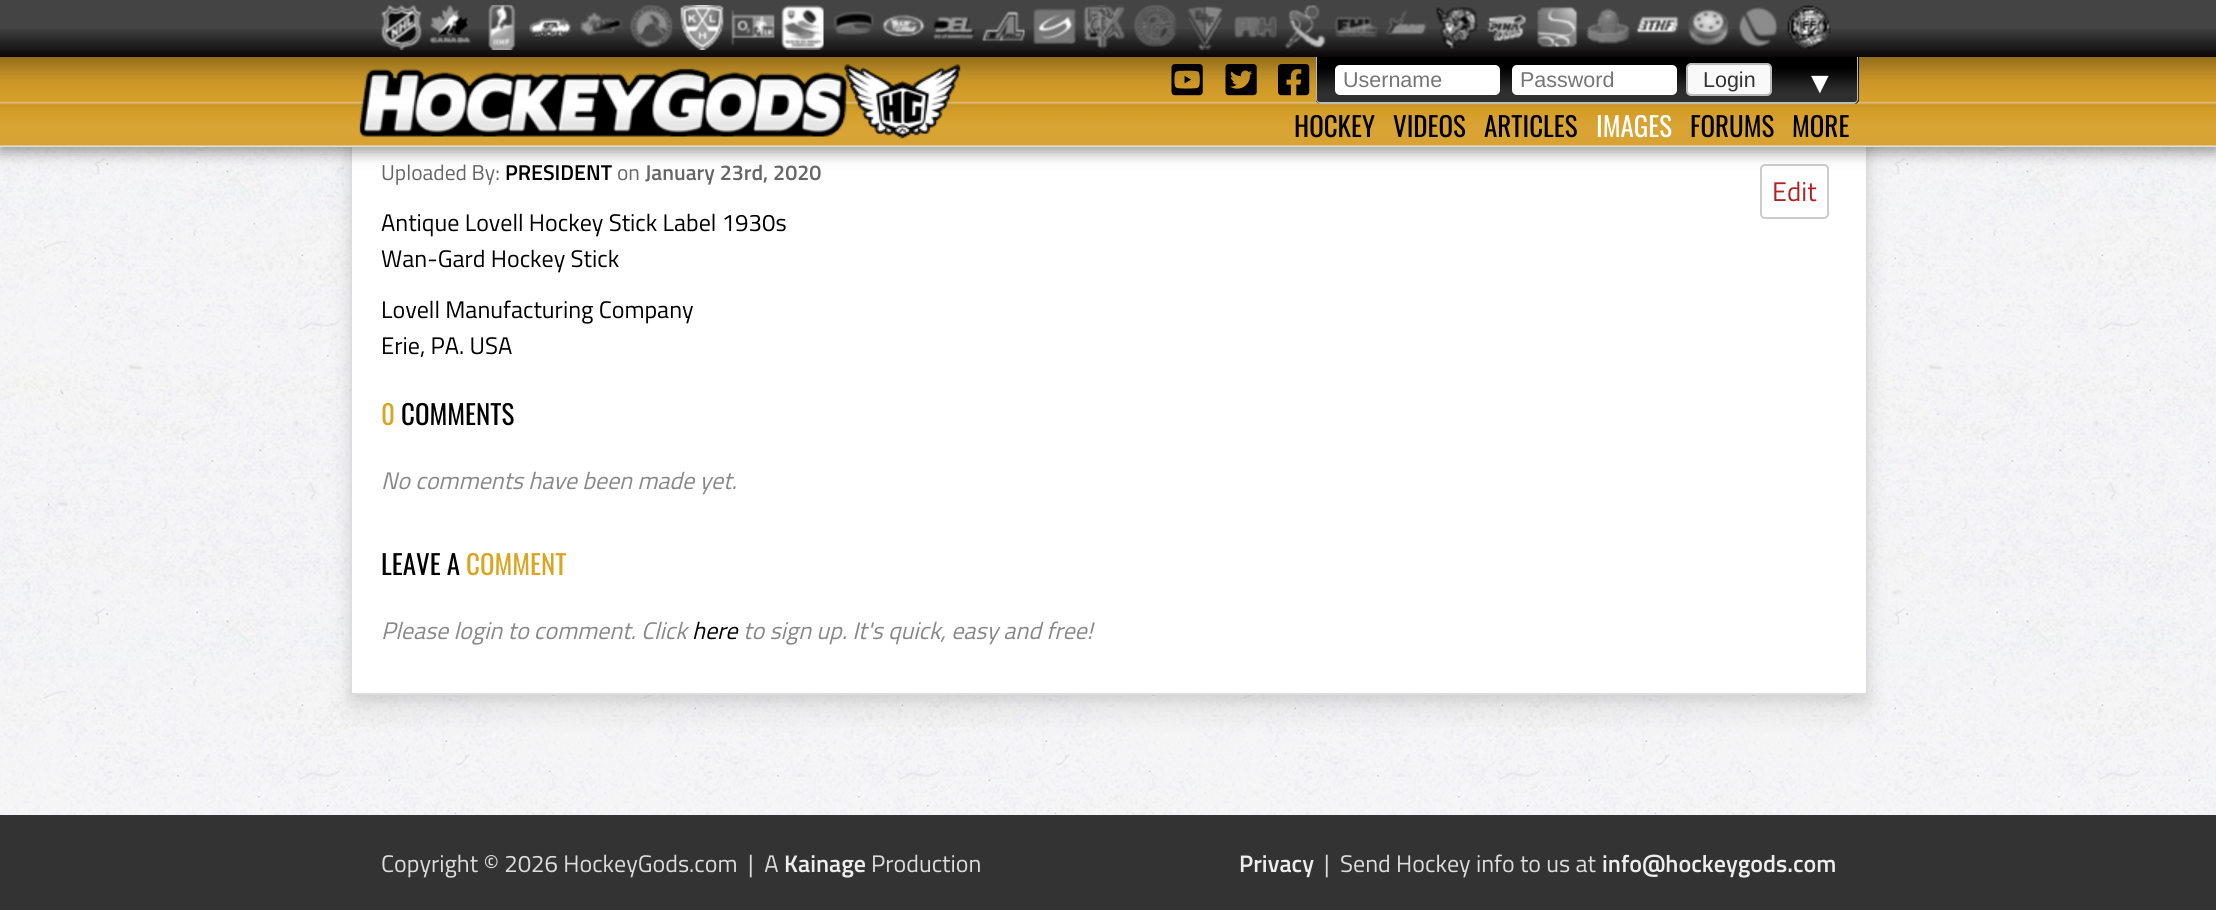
import math
import cairo


def round_path(ctx, x, y, w, h, r):
	ctx.new_sub_path()
	for i, (u, v) in enumerate([(x + w - r, y + h - r), (x + r, y + h - r), (x + r, y + r), (x + w - r, y + r)]):
		ctx.arc(u, v, r, i * math.pi / 2, (i + 1) * math.pi / 2)
	ctx.close_path()

def blur_box(ctx, x, y, w, h, r, blur, alpha):
	ctx.push_group_with_content(cairo.CONTENT_ALPHA)
	ctx.set_operator(cairo.OPERATOR_SOURCE)
	for i in range(15, -16, -2):
		e = blur * i / 6
		if min(w, h) + 2 * e > 0:
			ctx.set_source_rgba(0, 0, 0, alpha * math.erfc((i - 1) / 8.5) / 2)
			round_path(ctx, x - e, y - e, w + 2 * e, h + 2 * e, max(0, min(r + e + blur * .6, min(w, h) / 2 + e)))
			ctx.fill()
	ctx.mask(ctx.pop_group())

def paste(ctx, path, x, y, w, h):
	ctx.save()
	ctx.set_source_surface(cairo.ImageSurface.create_from_png(path), x, y)
	ctx.rectangle(x, y, w, h)
	ctx.fill()
	ctx.restore()

def draw(ctx):
	ctx.set_source_rgb(1, 1, 1)
	ctx.paint()
	paste(ctx, 'media/1.png', 0, 147, 2216, 668)
	ctx.set_source_rgb(0, 0, 0)
	blur_box(ctx, 350, -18, 1518, 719, 0, 6, 0.08)
	blur_box(ctx, 353, -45, 1512, 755, 0, 15, 0.08)
	ctx.set_source_rgb(1, 1, 1)
	ctx.rectangle(352, 147, 1514, 546)
	ctx.fill()
	ctx.rectangle(351, -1, 1516, 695)
	ctx.set_source_rgb(0.867, 0.867, 0.867)
	ctx.stroke()
	gradient = cairo.LinearGradient(1109, 0, 1109, 57)
	gradient.add_color_stop_rgba(0, 0.267, 0.267, 0.267, 1)
	gradient.add_color_stop_rgba(0.5, 0.267, 0.267, 0.267, 1)
	gradient.add_color_stop_rgba(0.51, 0.247, 0.247, 0.247, 1)
	gradient.add_color_stop_rgba(1, 0.039, 0.031, 0.035, 1)
	ctx.set_source(gradient)
	ctx.rectangle(0, 0, 2216, 57)
	ctx.fill()
	paste(ctx, 'media/2.png', 380, 5, 42, 45)
	paste(ctx, 'media/3.png', 429, 5, 42, 39)
	paste(ctx, 'media/4.png', 488, 5, 28, 45)
	paste(ctx, 'media/5.png', 529, 17, 43, 20)
	paste(ctx, 'media/6.png', 580, 12, 43, 24)
	paste(ctx, 'media/7.png', 630, 5, 43, 44)
	paste(ctx, 'media/8.png', 680, 5, 44, 45)
	paste(ctx, 'media/9.png', 731, 10, 44, 36)
	paste(ctx, 'media/10.png', 781, 5, 43, 45)
	paste(ctx, 'media/11.png', 833, 11, 41, 24)
	paste(ctx, 'media/12.png', 882, 14, 43, 23)
	paste(ctx, 'media/13.png', 933, 16, 42, 24)
	paste(ctx, 'media/14.png', 982, 11, 43, 31)
	paste(ctx, 'media/15.png', 1033, 8, 43, 37)
	paste(ctx, 'media/16.png', 1083, 5, 42, 44)
	paste(ctx, 'media/17.png', 1133, 5, 44, 42)
	paste(ctx, 'media/18.png', 1187, 5, 36, 45)
	paste(ctx, 'media/19.png', 1234, 16, 43, 22)
	paste(ctx, 'media/20.png', 1284, 5, 42, 44)
	paste(ctx, 'media/21.png', 1334, 16, 44, 22)
	paste(ctx, 'media/22.png', 1385, 10, 42, 25)
	paste(ctx, 'media/23.png', 1435, 6, 43, 43)
	paste(ctx, 'media/24.png', 1487, 14, 40, 28)
	paste(ctx, 'media/25.png', 1536, 6, 42, 42)
	paste(ctx, 'media/26.png', 1586, 8, 44, 36)
	paste(ctx, 'media/27.png', 1636, 16, 43, 18)
	paste(ctx, 'media/28.png', 1688, 9, 41, 37)
	paste(ctx, 'media/29.png', 1739, 7, 39, 41)
	paste(ctx, 'media/30.png', 1787, 5, 44, 44)
	round_path(ctx, 1761, 165, 67, 53, 4)
	ctx.set_source_rgb(0.8, 0.8, 0.8)
	ctx.stroke()
	ctx.set_source_rgb(0, 0, 0)
	blur_box(ctx, 0, 62, 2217, 90, 0, 7.5, 0.4)
	paste(ctx, 'media/31.png', 0, 57, 2216, 90)
	paste(ctx, 'media/32.png', 359, 64, 602, 75)
	paste(ctx, 'media/33.png', 1171, 64, 32, 32)
	paste(ctx, 'media/34.png', 1225, 64, 32, 32)
	paste(ctx, 'media/35.png', 1278, 64, 32, 32)
	ctx.set_source_rgb(0, 0, 0)
	ctx.new_path()
	ctx.move_to(1316, 57)
	ctx.line_to(1859, 57)
	ctx.line_to(1859, 99)
	ctx.curve_to(1859, 102, 1857, 104, 1854, 104)
	ctx.line_to(1321, 104)
	ctx.curve_to(1318, 104, 1316, 102, 1316, 99)
	ctx.close_path()
	ctx.fill()
	paste(ctx, 'media/36.png', 1316, 69, 543, 33)
	ctx.set_source_rgb(0.733, 0.733, 0.733)
	ctx.set_fill_rule(cairo.FILL_RULE_EVEN_ODD)
	ctx.new_path()
	ctx.move_to(1316, 57)
	ctx.line_to(1858, 57)
	ctx.line_to(1858, 99)
	ctx.curve_to(1858, 101, 1856, 104, 1854, 104)
	ctx.line_to(1320, 104)
	ctx.curve_to(1318, 104, 1316, 101, 1316, 99)
	ctx.close_path()
	ctx.move_to(1317, 57)
	ctx.line_to(1857, 57)
	ctx.line_to(1857, 99)
	ctx.curve_to(1857, 101, 1856, 102, 1854, 102)
	ctx.line_to(1320, 102)
	ctx.curve_to(1318, 102, 1317, 101, 1317, 99)
	ctx.close_path()
	ctx.fill()
	ctx.set_source_rgb(1, 1, 1)
	round_path(ctx, 1335, 65, 165, 30, 5)
	ctx.fill()
	ctx.select_font_face('Liberation Sans')
	ctx.set_font_size(21.5)
	ctx.set_source_rgb(0.459, 0.459, 0.459)
	ctx.move_to(1343, 87)
	ctx.show_text('Username')
	ctx.set_source_rgb(1, 1, 1)
	round_path(ctx, 1512, 65, 165, 30, 5)
	ctx.fill()
	ctx.set_source_rgb(0.459, 0.459, 0.459)
	ctx.move_to(1520, 87)
	ctx.show_text('Password')
	ctx.set_source_rgb(0.976, 0.976, 0.976)
	round_path(ctx, 1687, 64, 84, 31, 4)
	ctx.fill_preserve()
	ctx.set_source_rgb(0.733, 0.733, 0.733)
	ctx.stroke()
	ctx.set_source_rgb(0.2, 0.2, 0.2)
	ctx.move_to(1703, 87)
	ctx.show_text('Login')
	ctx.select_font_face('Liberation Serif')
	ctx.set_font_size(30)
	ctx.set_source_rgb(1, 1, 1)
	ctx.move_to(1805, 93)
	ctx.show_text('▼')
	ctx.select_font_face('Oswald')
	ctx.set_font_size(27)
	ctx.set_source_rgb(0, 0, 0)
	for x, y, s in [
		(1294, 137, 'HOCKEY'),
		(1393, 137, 'VIDEOS'),
		(1484, 137, 'ARTICLES'),
	]:
		ctx.move_to(x, y)
		ctx.show_text(s)
	ctx.set_source_rgb(1, 1, 1)
	ctx.move_to(1596, 137)
	ctx.show_text('IMAGES')
	ctx.set_source_rgb(0, 0, 0)
	ctx.move_to(1690, 137)
	ctx.show_text('FORUMS')
	ctx.move_to(1792, 137)
	ctx.show_text('MORE')
	ctx.select_font_face('Titillium Web')
	ctx.set_font_size(21.5)
	ctx.set_source_rgb(0.4, 0.4, 0.4)
	ctx.move_to(381, 180)
	ctx.show_text('Uploaded By:')
	ctx.select_font_face('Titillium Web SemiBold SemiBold')
	ctx.set_source_rgb(0, 0, 0)
	ctx.move_to(505, 180)
	ctx.show_text('PRESIDENT')
	ctx.select_font_face('Titillium Web')
	ctx.set_source_rgb(0.4, 0.4, 0.4)
	ctx.move_to(617, 180)
	ctx.show_text('on')
	ctx.select_font_face('Titillium Web SemiBold SemiBold')
	ctx.move_to(645, 180)
	ctx.show_text('January 23rd, 2020')
	ctx.select_font_face('Titillium Web')
	ctx.set_font_size(27)
	ctx.set_source_rgb(0.698, 0.133, 0.133)
	ctx.move_to(1772, 201)
	ctx.show_text('Edit')
	ctx.set_font_size(24)
	ctx.set_source_rgb(0, 0, 0)
	for x, y, s in [
		(381, 231, 'Antique Lovell Hockey Stick Label 1930s'),
		(381, 267, 'Wan-Gard Hockey Stick'),
		(381, 318, 'Lovell Manufacturing Company'),
		(381, 354, 'Erie, PA. USA'),
	]:
		ctx.move_to(x, y)
		ctx.show_text(s)
	ctx.select_font_face('Oswald')
	ctx.set_font_size(27)
	ctx.set_source_rgb(0.855, 0.647, 0.125)
	ctx.move_to(381, 425)
	ctx.show_text('0')
	ctx.set_source_rgb(0, 0, 0)
	ctx.move_to(401, 425)
	ctx.show_text('COMMENTS')
	ctx.select_font_face('Titillium Web', cairo.FONT_SLANT_ITALIC)
	ctx.set_font_size(24)
	ctx.set_source_rgb(0.533, 0.533, 0.533)
	ctx.move_to(381, 489)
	ctx.show_text('No comments have been made yet.')
	ctx.select_font_face('Oswald')
	ctx.set_font_size(27)
	ctx.set_source_rgb(0, 0, 0)
	ctx.move_to(381, 575)
	ctx.show_text('LEAVE A')
	ctx.set_source_rgb(0.855, 0.647, 0.125)
	ctx.move_to(466, 575)
	ctx.show_text('COMMENT')
	ctx.select_font_face('Titillium Web', cairo.FONT_SLANT_ITALIC)
	ctx.set_font_size(24)
	ctx.set_source_rgb(0.533, 0.533, 0.533)
	ctx.move_to(381, 639)
	ctx.show_text('Please login to comment. Click')
	ctx.set_source_rgb(0, 0, 0)
	ctx.move_to(692, 639)
	ctx.show_text('here')
	ctx.set_source_rgb(0.533, 0.533, 0.533)
	ctx.move_to(743, 639)
	ctx.show_text('to sign up. It\'s quick, easy and free!')
	ctx.set_source_rgb(0.2, 0.2, 0.2)
	ctx.rectangle(0, 815, 2216, 95)
	ctx.fill()
	ctx.select_font_face('Titillium Web')
	ctx.set_source_rgb(0.867, 0.867, 0.867)
	ctx.move_to(381, 872)
	ctx.show_text('Copyright © 2026 HockeyGods.com  |  A')
	ctx.select_font_face('Titillium Web SemiBold SemiBold')
	ctx.set_source_rgb(0.933, 0.933, 0.933)
	ctx.move_to(784, 872)
	ctx.show_text('Kainage')
	ctx.select_font_face('Titillium Web')
	ctx.set_source_rgb(0.867, 0.867, 0.867)
	ctx.move_to(871, 872)
	ctx.show_text('Production')
	ctx.select_font_face('Titillium Web SemiBold SemiBold')
	ctx.set_source_rgb(0.933, 0.933, 0.933)
	ctx.move_to(1239, 872)
	ctx.show_text('Privacy')
	ctx.select_font_face('Titillium Web')
	ctx.set_source_rgb(0.867, 0.867, 0.867)
	ctx.move_to(1324, 872)
	ctx.show_text('|  Send Hockey info to us at')
	ctx.select_font_face('Titillium Web SemiBold SemiBold')
	ctx.set_source_rgb(0.933, 0.933, 0.933)
	ctx.move_to(1602, 872)
	ctx.show_text('info@hockeygods.com')


surface = cairo.ImageSurface(cairo.FORMAT_RGB24, 2216, 910)
ctx = cairo.Context(surface)
options = cairo.FontOptions()
options.set_hint_metrics(cairo.HINT_METRICS_OFF)
options.set_hint_style(cairo.HINT_STYLE_NONE)
ctx.set_font_options(options)
ctx.set_miter_limit(4)
draw(ctx)
surface.write_to_png('image.png')
